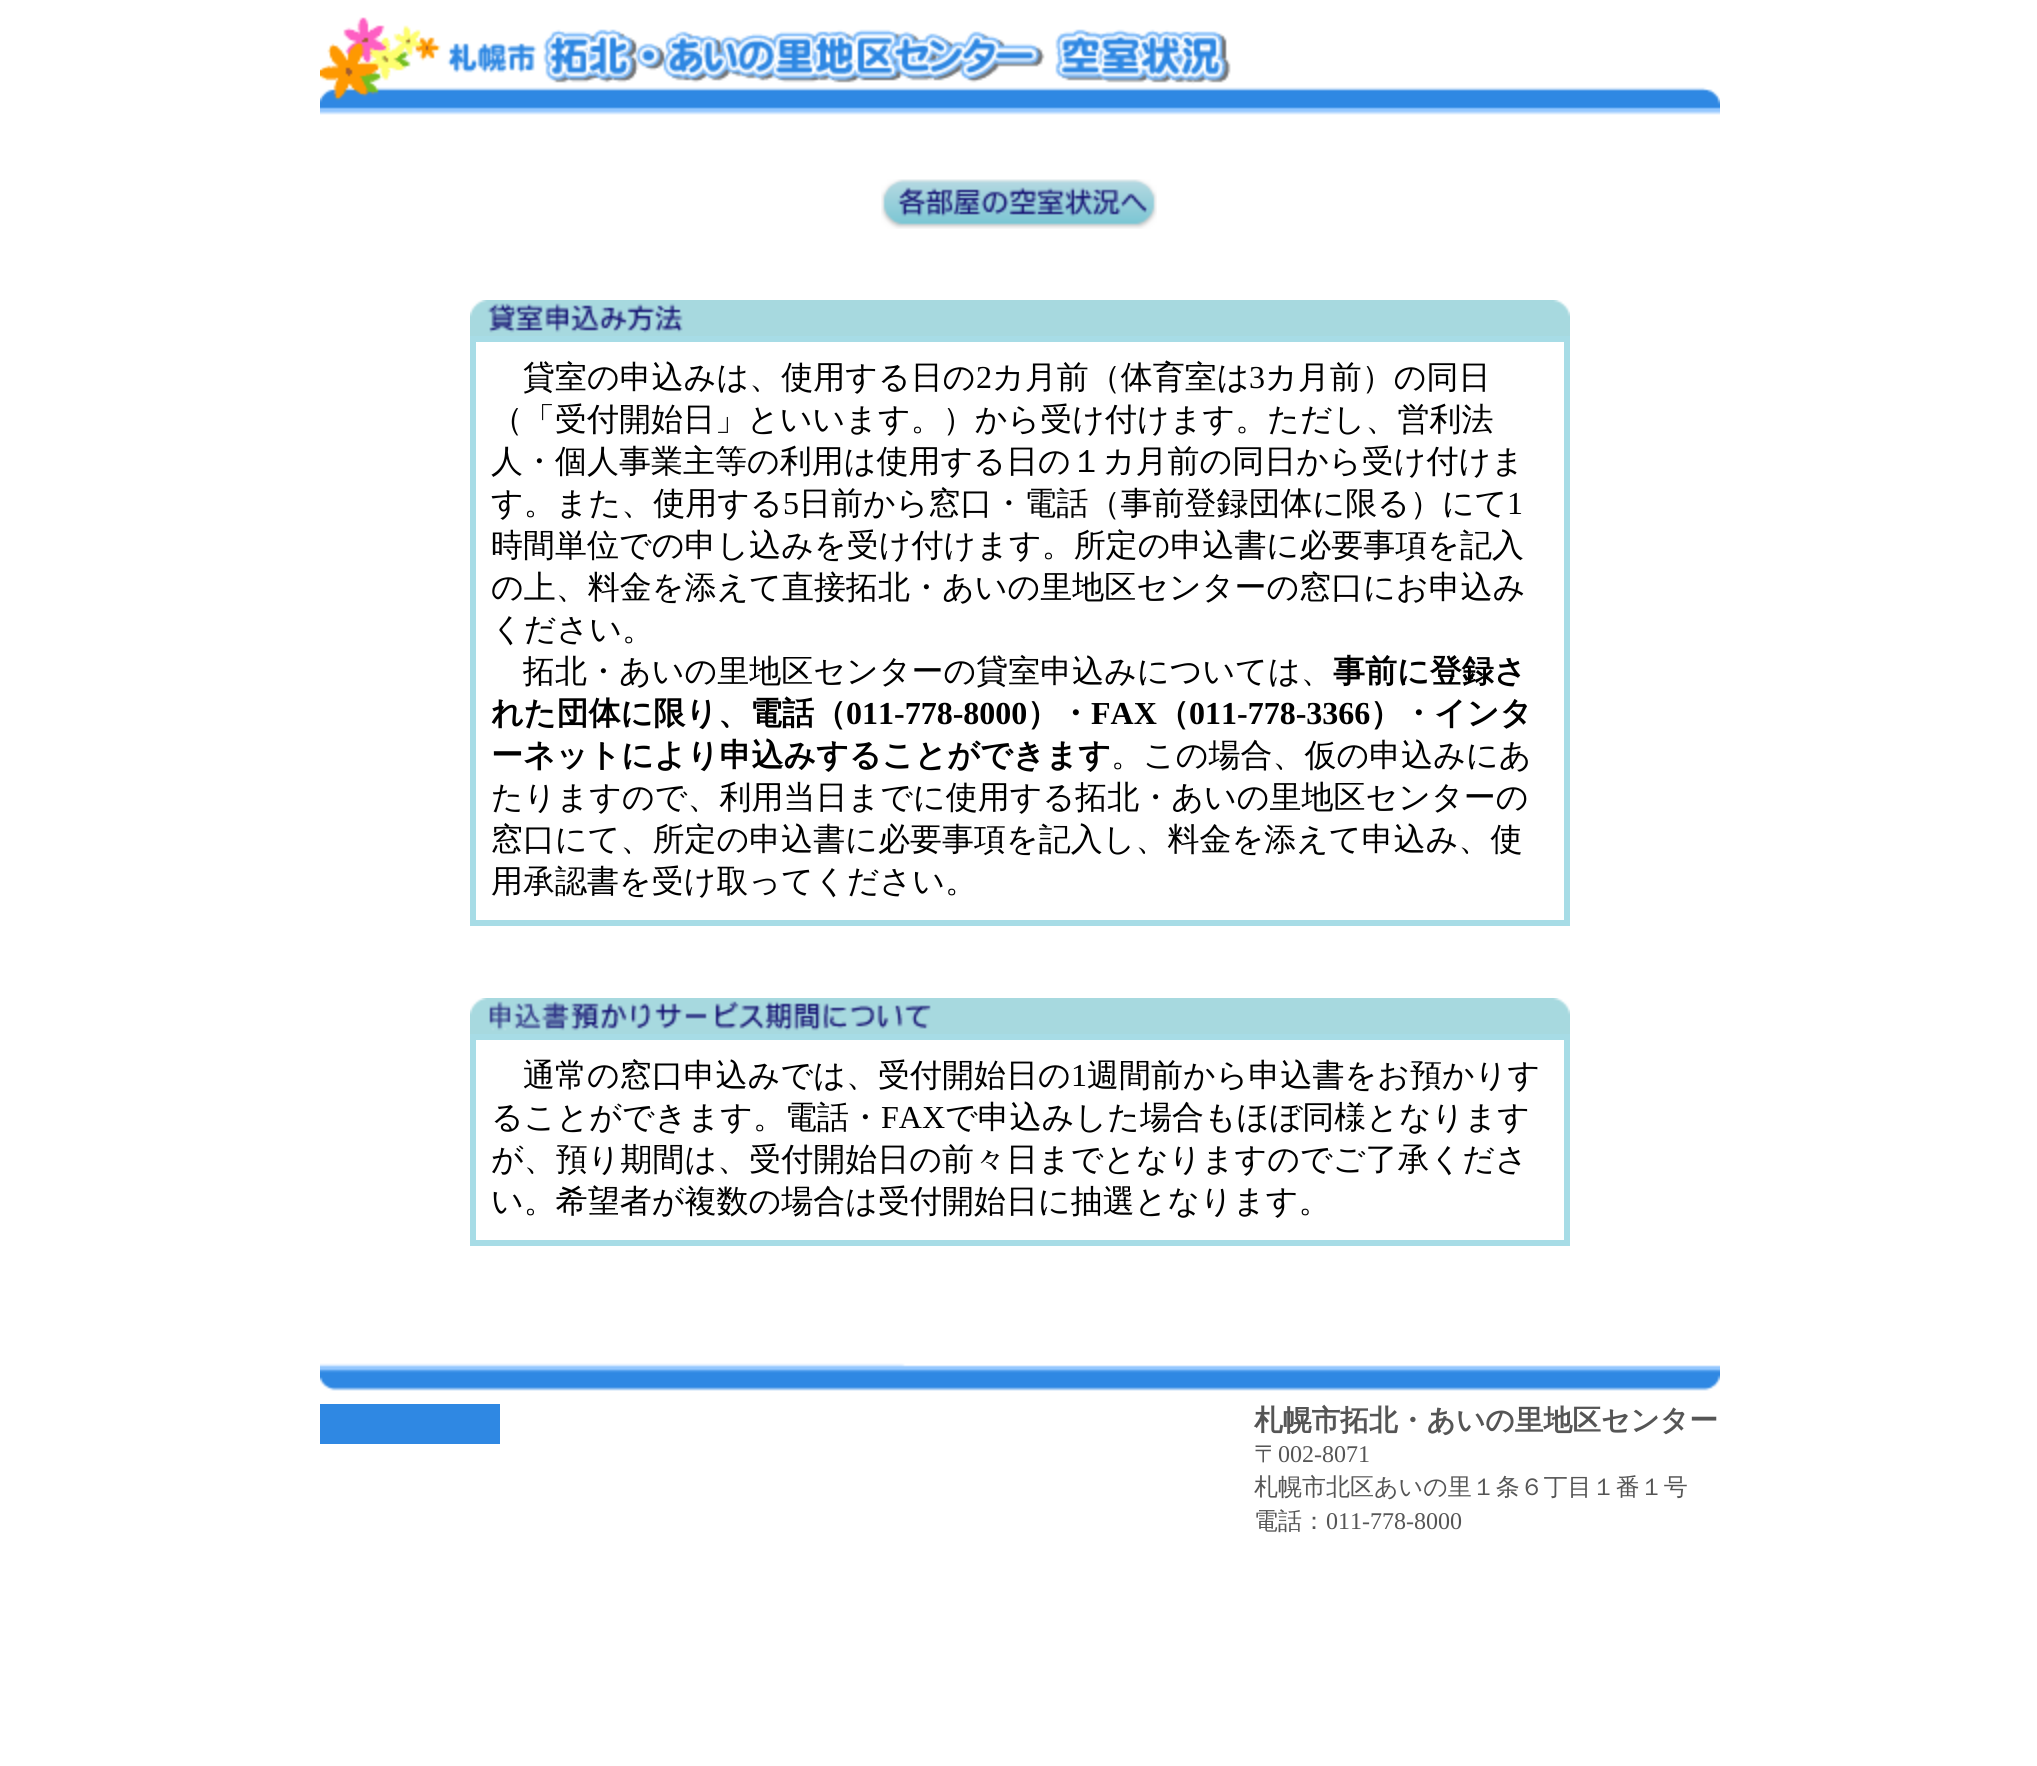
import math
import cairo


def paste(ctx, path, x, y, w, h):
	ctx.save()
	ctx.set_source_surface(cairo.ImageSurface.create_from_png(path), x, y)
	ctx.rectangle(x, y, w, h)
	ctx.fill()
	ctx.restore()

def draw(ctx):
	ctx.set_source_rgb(1, 1, 1)
	ctx.paint()
	paste(ctx, 'media/1.png', 320, 17, 1400, 98)
	paste(ctx, 'media/2.png', 881, 179, 276, 50)
	paste(ctx, 'media/3.png', 470, 300, 1100, 36)
	ctx.set_source_rgb(0.655, 0.863, 0.902)
	ctx.rectangle(470, 336, 1100, 590)
	ctx.fill()
	ctx.set_source_rgb(1, 1, 1)
	ctx.rectangle(476, 342, 1088, 578)
	ctx.fill()
	ctx.select_font_face('WenQuanYi Zen Hei Medium')
	ctx.set_font_size(32)
	ctx.set_source_rgb(0, 0, 0)
	ctx.move_to(523, 388)
	ctx.show_text('貸室の申込みは、使用する日の')
	ctx.select_font_face('Liberation Serif')
	ctx.move_to(976, 388)
	ctx.show_text('2')
	ctx.select_font_face('WenQuanYi Zen Hei Medium')
	ctx.move_to(992, 388)
	ctx.show_text('カ月前（体育室は')
	ctx.select_font_face('Liberation Serif')
	ctx.move_to(1249, 388)
	ctx.show_text('3')
	ctx.select_font_face('WenQuanYi Zen Hei Medium')
	for x, y, s in [
		(1265, 388, 'カ月前）の同日'),
		(491, 430, '（「受付開始日」といいます。）から受け付けます。ただし、営利法'),
		(491, 472, '人・個人事業主等の利用は使用する日の１カ月前の同日から受け付けま'),
		(491, 514, 'す。また、使用する'),
	]:
		ctx.move_to(x, y)
		ctx.show_text(s)
	ctx.select_font_face('Liberation Serif')
	ctx.move_to(783, 514)
	ctx.show_text('5')
	ctx.select_font_face('WenQuanYi Zen Hei Medium')
	ctx.move_to(799, 514)
	ctx.show_text('日前から窓口・電話（事前登録団体に限る）にて')
	ctx.select_font_face('Liberation Serif')
	ctx.move_to(1507, 514)
	ctx.show_text('1')
	ctx.select_font_face('WenQuanYi Zen Hei Medium')
	for x, y, s in [
		(491, 556, '時間単位での申し込みを受け付けます。所定の申込書に必要事項を記入'),
		(491, 598, 'の上、料金を添えて直接拓北・あいの里地区センターの窓口にお申込み'),
		(491, 640, 'ください。'),
		(523, 682, '拓北・あいの里地区センターの貸室申込みについては、'),
	]:
		ctx.move_to(x, y)
		ctx.show_text(s)
	ctx.select_font_face('WenQuanYi Zen Hei', cairo.FONT_SLANT_NORMAL, cairo.FONT_WEIGHT_BOLD)
	ctx.move_to(1333, 682)
	ctx.show_text('事前に登録さ')
	ctx.move_to(491, 724)
	ctx.show_text('れた団体に限り、電話（')
	ctx.select_font_face('Liberation Serif', cairo.FONT_SLANT_NORMAL, cairo.FONT_WEIGHT_BOLD)
	ctx.move_to(846, 724)
	ctx.show_text('011-778-8000')
	ctx.select_font_face('WenQuanYi Zen Hei', cairo.FONT_SLANT_NORMAL, cairo.FONT_WEIGHT_BOLD)
	ctx.move_to(1027, 724)
	ctx.show_text('）・')
	ctx.select_font_face('Liberation Serif', cairo.FONT_SLANT_NORMAL, cairo.FONT_WEIGHT_BOLD)
	ctx.move_to(1091, 724)
	ctx.show_text('FAX')
	ctx.select_font_face('WenQuanYi Zen Hei', cairo.FONT_SLANT_NORMAL, cairo.FONT_WEIGHT_BOLD)
	ctx.move_to(1157, 724)
	ctx.show_text('（')
	ctx.select_font_face('Liberation Serif', cairo.FONT_SLANT_NORMAL, cairo.FONT_WEIGHT_BOLD)
	ctx.move_to(1189, 724)
	ctx.show_text('011-778-3366')
	ctx.select_font_face('WenQuanYi Zen Hei', cairo.FONT_SLANT_NORMAL, cairo.FONT_WEIGHT_BOLD)
	ctx.move_to(1370, 724)
	ctx.show_text('）・インタ')
	ctx.move_to(491, 766)
	ctx.show_text('ーネットにより申込みすることができます')
	ctx.select_font_face('WenQuanYi Zen Hei Medium')
	for x, y, s in [
		(1111, 766, '。この場合、仮の申込みにあ'),
		(491, 808, 'たりますので、利用当日までに使用する拓北・あいの里地区センターの'),
		(491, 850, '窓口にて、所定の申込書に必要事項を記入し、料金を添えて申込み、使'),
		(491, 892, '用承認書を受け取ってください。'),
	]:
		ctx.move_to(x, y)
		ctx.show_text(s)
	paste(ctx, 'media/4.png', 470, 998, 1100, 36)
	ctx.set_source_rgb(0.655, 0.863, 0.902)
	ctx.rectangle(470, 1034, 1100, 212)
	ctx.fill()
	ctx.set_source_rgb(1, 1, 1)
	ctx.rectangle(476, 1040, 1088, 200)
	ctx.fill()
	ctx.set_source_rgb(0, 0, 0)
	ctx.move_to(523, 1086)
	ctx.show_text('通常の窓口申込みでは、受付開始日の')
	ctx.select_font_face('Liberation Serif')
	ctx.move_to(1071, 1086)
	ctx.show_text('1')
	ctx.select_font_face('WenQuanYi Zen Hei Medium')
	ctx.move_to(1087, 1086)
	ctx.show_text('週間前から申込書をお預かりす')
	ctx.move_to(491, 1128)
	ctx.show_text('ることができます。電話・')
	ctx.select_font_face('Liberation Serif')
	ctx.move_to(881, 1128)
	ctx.show_text('FAX')
	ctx.select_font_face('WenQuanYi Zen Hei Medium')
	for x, y, s in [
		(945, 1128, 'で申込みした場合もほぼ同様となります'),
		(491, 1170, 'が、預り期間は、受付開始日の前々日までとなりますのでご了承くださ'),
		(491, 1212, 'い。希望者が複数の場合は受付開始日に抽選となります。'),
	]:
		ctx.move_to(x, y)
		ctx.show_text(s)
	paste(ctx, 'media/5.png', 320, 1363, 1400, 28)
	ctx.set_source_rgb(0.184, 0.533, 0.89)
	ctx.rectangle(320, 1404, 180, 40)
	ctx.fill()
	ctx.select_font_face('WenQuanYi Zen Hei', cairo.FONT_SLANT_NORMAL, cairo.FONT_WEIGHT_BOLD)
	ctx.set_font_size(28.75)
	ctx.set_source_rgb(0.333, 0.333, 0.333)
	ctx.move_to(1254, 1430)
	ctx.show_text('札幌市拓北・あいの里地区センター')
	ctx.select_font_face('WenQuanYi Zen Hei Medium')
	ctx.set_font_size(24)
	ctx.move_to(1254, 1462)
	ctx.show_text('〒')
	ctx.select_font_face('Liberation Serif')
	ctx.move_to(1278, 1462)
	ctx.show_text('002-8071')
	ctx.select_font_face('WenQuanYi Zen Hei Medium')
	ctx.move_to(1254, 1495)
	ctx.show_text('札幌市北区あいの里１条６丁目１番１号')
	ctx.move_to(1254, 1529)
	ctx.show_text('電話：')
	ctx.select_font_face('Liberation Serif')
	ctx.move_to(1326, 1529)
	ctx.show_text('011-778-8000')


surface = cairo.ImageSurface(cairo.FORMAT_RGB24, 2037, 1766)
ctx = cairo.Context(surface)
options = cairo.FontOptions()
options.set_hint_metrics(cairo.HINT_METRICS_OFF)
options.set_hint_style(cairo.HINT_STYLE_NONE)
ctx.set_font_options(options)
ctx.set_miter_limit(4)
draw(ctx)
surface.write_to_png('image.png')
